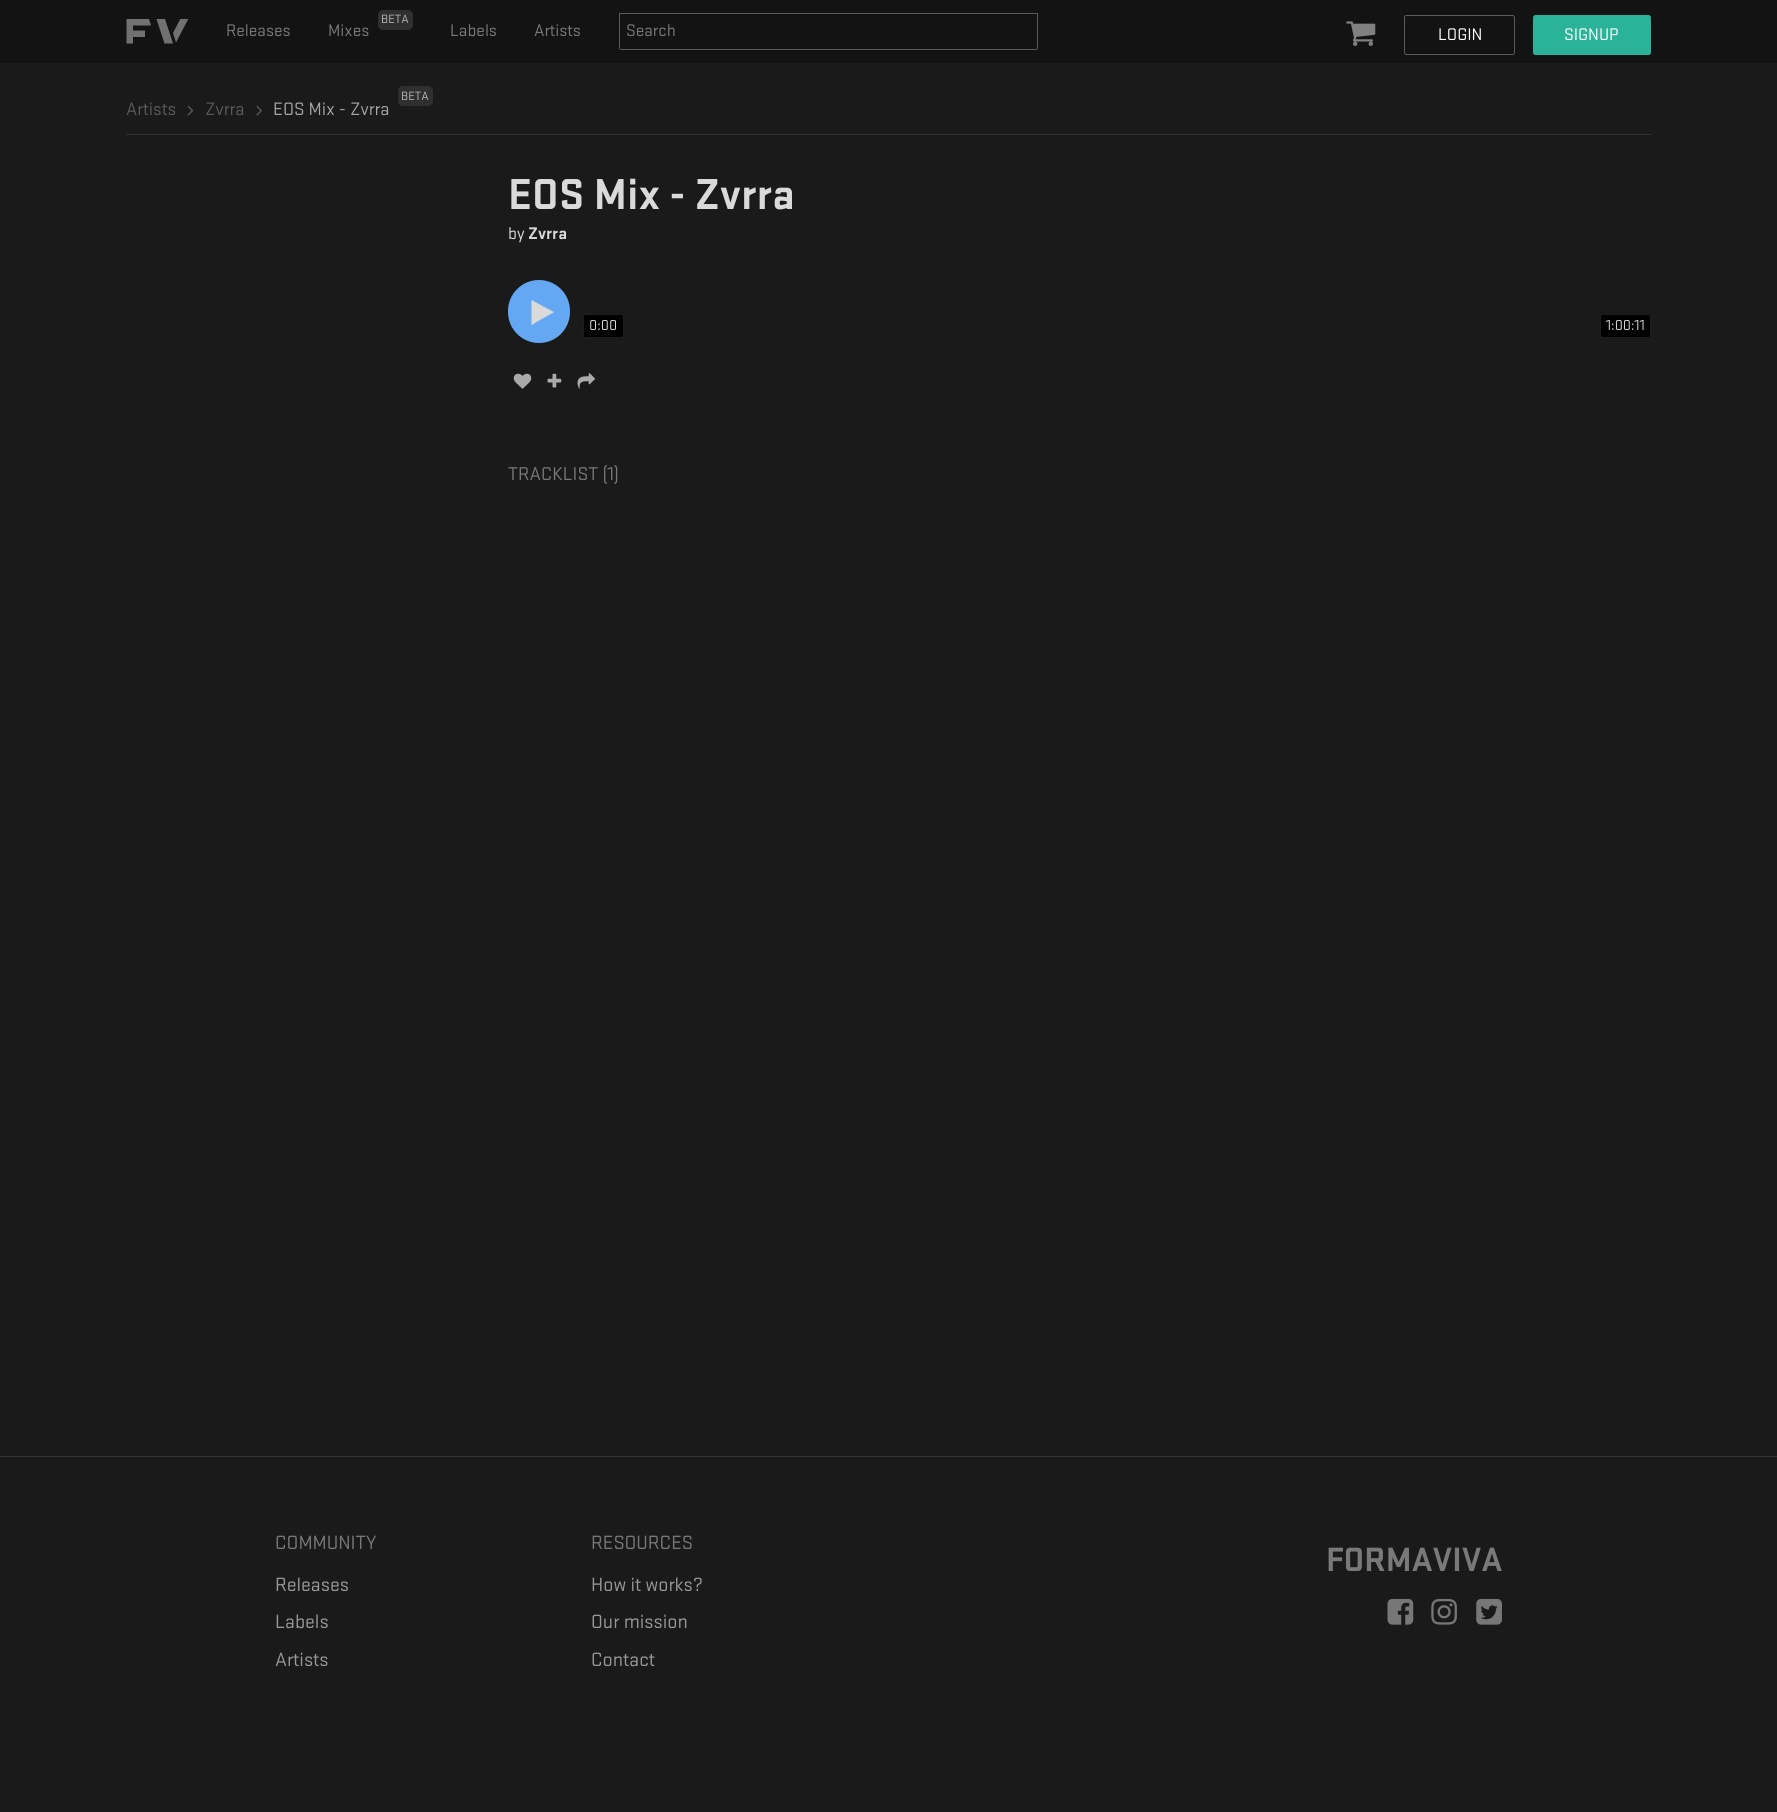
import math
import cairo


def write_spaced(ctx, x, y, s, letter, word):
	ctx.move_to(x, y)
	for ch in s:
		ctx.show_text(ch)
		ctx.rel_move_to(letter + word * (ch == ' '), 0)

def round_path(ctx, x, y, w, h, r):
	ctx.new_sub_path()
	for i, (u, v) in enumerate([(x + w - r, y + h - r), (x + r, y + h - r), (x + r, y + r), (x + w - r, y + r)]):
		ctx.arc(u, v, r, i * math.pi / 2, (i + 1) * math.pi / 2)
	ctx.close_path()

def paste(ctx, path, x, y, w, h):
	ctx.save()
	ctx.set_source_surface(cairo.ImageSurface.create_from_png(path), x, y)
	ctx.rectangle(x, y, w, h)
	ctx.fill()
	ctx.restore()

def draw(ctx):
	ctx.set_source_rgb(0.102, 0.102, 0.102)
	ctx.paint()
	ctx.set_source_rgb(0.078, 0.078, 0.078)
	ctx.rectangle(0, 0, 1777, 63)
	ctx.fill()
	ctx.set_source_rgb(0.443, 0.443, 0.443)
	ctx.set_fill_rule(cairo.FILL_RULE_EVEN_ODD)
	ctx.new_path()
	ctx.move_to(149, 19)
	ctx.line_to(151, 25.5)
	ctx.line_to(133, 25.5)
	ctx.line_to(133, 30.5)
	ctx.line_to(145, 30.5)
	ctx.line_to(145, 37)
	ctx.line_to(133, 37)
	ctx.line_to(133, 43.5)
	ctx.line_to(126.5, 43.5)
	ctx.line_to(126.5, 19)
	ctx.close_path()
	ctx.move_to(156.5, 19)
	ctx.line_to(164.5, 43.5)
	ctx.line_to(173, 43.5)
	ctx.line_to(165, 19)
	ctx.close_path()
	ctx.fill()
	ctx.save()
	ctx.set_fill_rule(cairo.FILL_RULE_WINDING)
	ctx.rectangle(126, 19, 63, 25)
	ctx.clip()
	ctx.set_fill_rule(cairo.FILL_RULE_EVEN_ODD)
	ctx.new_path()
	ctx.move_to(173, 33)
	ctx.line_to(180.5, 18.5)
	ctx.line_to(188.5, 18.5)
	ctx.line_to(176, 42.5)
	ctx.close_path()
	ctx.fill()
	ctx.restore()
	ctx.select_font_face('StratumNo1')
	ctx.set_font_size(17.5)
	ctx.set_source_rgb(0.475, 0.475, 0.475)
	ctx.move_to(226, 36)
	ctx.show_text('Releases')
	ctx.set_source_rgb(0.184, 0.184, 0.184)
	round_path(ctx, 378, 10, 35, 20, 5)
	ctx.fill()
	ctx.set_font_size(12.5)
	ctx.set_source_rgb(0.725, 0.718, 0.718)
	ctx.move_to(381, 23)
	ctx.show_text('BETA')
	ctx.set_font_size(17.5)
	ctx.set_source_rgb(0.475, 0.475, 0.475)
	for x, y, s in [
		(328, 36, 'Mixes'),
		(450, 36, 'Labels'),
		(534, 36, 'Artists'),
	]:
		ctx.move_to(x, y)
		ctx.show_text(s)
	ctx.set_source_rgb(0.357, 0.357, 0.357)
	ctx.new_path()
	ctx.move_to(619, 13)
	ctx.line_to(619, 48)
	ctx.curve_to(619, 49, 620, 50, 622, 50)
	ctx.line_to(1036, 50)
	ctx.curve_to(1037, 50, 1038, 49, 1038, 48)
	ctx.line_to(1038, 13)
	ctx.close_path()
	ctx.move_to(620, 14)
	ctx.line_to(620, 49)
	ctx.line_to(1037, 49)
	ctx.line_to(1037, 14)
	ctx.close_path()
	ctx.fill()
	ctx.set_source_rgb(0.475, 0.475, 0.475)
	ctx.move_to(626, 36)
	ctx.show_text('Search')
	paste(ctx, 'media/1.png', 1346, 21, 30, 25)
	round_path(ctx, 1404.5, 15.5, 110, 39, 2)
	ctx.set_source_rgb(0.357, 0.357, 0.357)
	ctx.set_line_width(1)
	ctx.stroke()
	ctx.set_source_rgb(1, 1, 1)
	ctx.move_to(1438, 40)
	ctx.show_text('LOGIN')
	ctx.set_source_rgb(0.169, 0.702, 0.604)
	round_path(ctx, 1533, 15, 118, 40, 2.5)
	ctx.fill()
	ctx.set_source_rgb(1, 1, 1)
	ctx.move_to(1564, 40)
	ctx.show_text('SIGNUP')
	ctx.set_source_rgb(0.2, 0.2, 0.2)
	ctx.rectangle(126, 134, 1525, 1)
	ctx.fill()
	ctx.set_source_rgb(0.184, 0.184, 0.184)
	round_path(ctx, 398, 86, 35, 20, 5)
	ctx.fill()
	ctx.set_font_size(12.5)
	ctx.set_source_rgb(0.725, 0.718, 0.718)
	ctx.move_to(401, 100)
	ctx.show_text('BETA')
	ctx.set_font_size(18.75)
	ctx.set_source_rgb(0.353, 0.353, 0.353)
	ctx.move_to(126, 115)
	ctx.show_text('Artists')
	paste(ctx, 'media/2.png', 187, 105, 7, 11)
	ctx.move_to(205, 115)
	ctx.show_text('Zvrra')
	paste(ctx, 'media/3.png', 256, 105, 6, 11)
	ctx.set_source_rgb(0.647, 0.647, 0.647)
	ctx.move_to(273, 115)
	ctx.show_text('EOS Mix - Zvrra')
	ctx.select_font_face('StratumNo1', cairo.FONT_SLANT_NORMAL, cairo.FONT_WEIGHT_BOLD)
	ctx.set_font_size(45)
	ctx.set_source_rgb(0.855, 0.855, 0.855)
	ctx.move_to(508, 209)
	ctx.show_text('EOS Mix - Zvrra')
	ctx.select_font_face('StratumNo1')
	ctx.set_font_size(17.5)
	ctx.move_to(508, 239)
	ctx.show_text('by')
	ctx.select_font_face('StratumNo1', cairo.FONT_SLANT_NORMAL, cairo.FONT_WEIGHT_BOLD)
	ctx.move_to(528, 239)
	ctx.show_text('Zvrra')
	ctx.set_source_rgb(0.392, 0.659, 0.957)
	round_path(ctx, 508, 280, 62, 63, 31)
	ctx.fill()
	ctx.set_source_rgb(0.855, 0.855, 0.855)
	ctx.set_fill_rule(cairo.FILL_RULE_WINDING)
	ctx.new_path()
	ctx.move_to(553.5, 312.5)
	ctx.line_to(535.5, 322.5)
	ctx.curve_to(535.5, 323, 532, 325.5, 531.5, 324.5)
	ctx.line_to(531.5, 300)
	ctx.line_to(550, 310)
	ctx.line_to(554, 312)
	ctx.close_path()
	ctx.fill()
	ctx.set_source_rgb(0, 0, 0)
	round_path(ctx, 583.5, 314.5, 40, 23, 2)
	ctx.fill_preserve()
	ctx.set_source_rgb(0.114, 0.114, 0.114)
	ctx.stroke()
	ctx.select_font_face('StratumNo1')
	ctx.set_font_size(15)
	ctx.set_source_rgb(0.855, 0.855, 0.855)
	ctx.move_to(589, 330)
	ctx.show_text('0:00')
	ctx.set_source_rgb(0, 0, 0)
	round_path(ctx, 1600.5, 314.5, 50, 23, 2)
	ctx.fill_preserve()
	ctx.set_source_rgb(0.114, 0.114, 0.114)
	ctx.stroke()
	ctx.set_source_rgb(0.855, 0.855, 0.855)
	ctx.move_to(1606, 330)
	ctx.show_text('1:00:11')
	paste(ctx, 'media/4.png', 513, 373, 19, 16)
	paste(ctx, 'media/5.png', 547, 373, 15, 15)
	paste(ctx, 'media/6.png', 577, 373, 18, 16)
	ctx.set_font_size(19.25)
	ctx.set_source_rgb(0.475, 0.475, 0.475)
	write_spaced(ctx, 508, 480, 'TRACKLIST (1)', 0.1, 0)
	ctx.set_source_rgb(0.2, 0.2, 0.2)
	ctx.rectangle(0, 1456, 1777, 1)
	ctx.fill()
	ctx.set_font_size(20)
	ctx.set_source_rgb(0.475, 0.475, 0.475)
	ctx.move_to(275, 1549)
	ctx.show_text('COMMUNITY')
	ctx.set_source_rgb(0.6, 0.6, 0.6)
	for x, y, s in [
		(275, 1591, 'Releases'),
		(275, 1628, 'Labels'),
		(275, 1666, 'Artists'),
	]:
		ctx.move_to(x, y)
		ctx.show_text(s)
	ctx.set_source_rgb(0.475, 0.475, 0.475)
	ctx.move_to(591, 1549)
	ctx.show_text('RESOURCES')
	ctx.set_source_rgb(0.6, 0.6, 0.6)
	for x, y, s in [
		(591, 1591, 'How it works?'),
		(591, 1628, 'Our mission'),
		(591, 1666, 'Contact'),
	]:
		ctx.move_to(x, y)
		ctx.show_text(s)
	ctx.select_font_face('StratumNo1', cairo.FONT_SLANT_NORMAL, cairo.FONT_WEIGHT_BOLD)
	ctx.set_font_size(35)
	ctx.set_source_rgb(0.475, 0.475, 0.475)
	ctx.move_to(1326, 1571)
	ctx.show_text('FORMAVIVA')
	paste(ctx, 'media/7.png', 1387, 1598, 27, 27)
	paste(ctx, 'media/8.png', 1431, 1598, 26, 27)
	paste(ctx, 'media/9.png', 1476, 1598, 26, 27)


surface = cairo.ImageSurface(cairo.FORMAT_RGB24, 1777, 1812)
ctx = cairo.Context(surface)
options = cairo.FontOptions()
options.set_hint_metrics(cairo.HINT_METRICS_OFF)
options.set_hint_style(cairo.HINT_STYLE_NONE)
ctx.set_font_options(options)
ctx.set_miter_limit(4)
draw(ctx)
surface.write_to_png('image.png')
